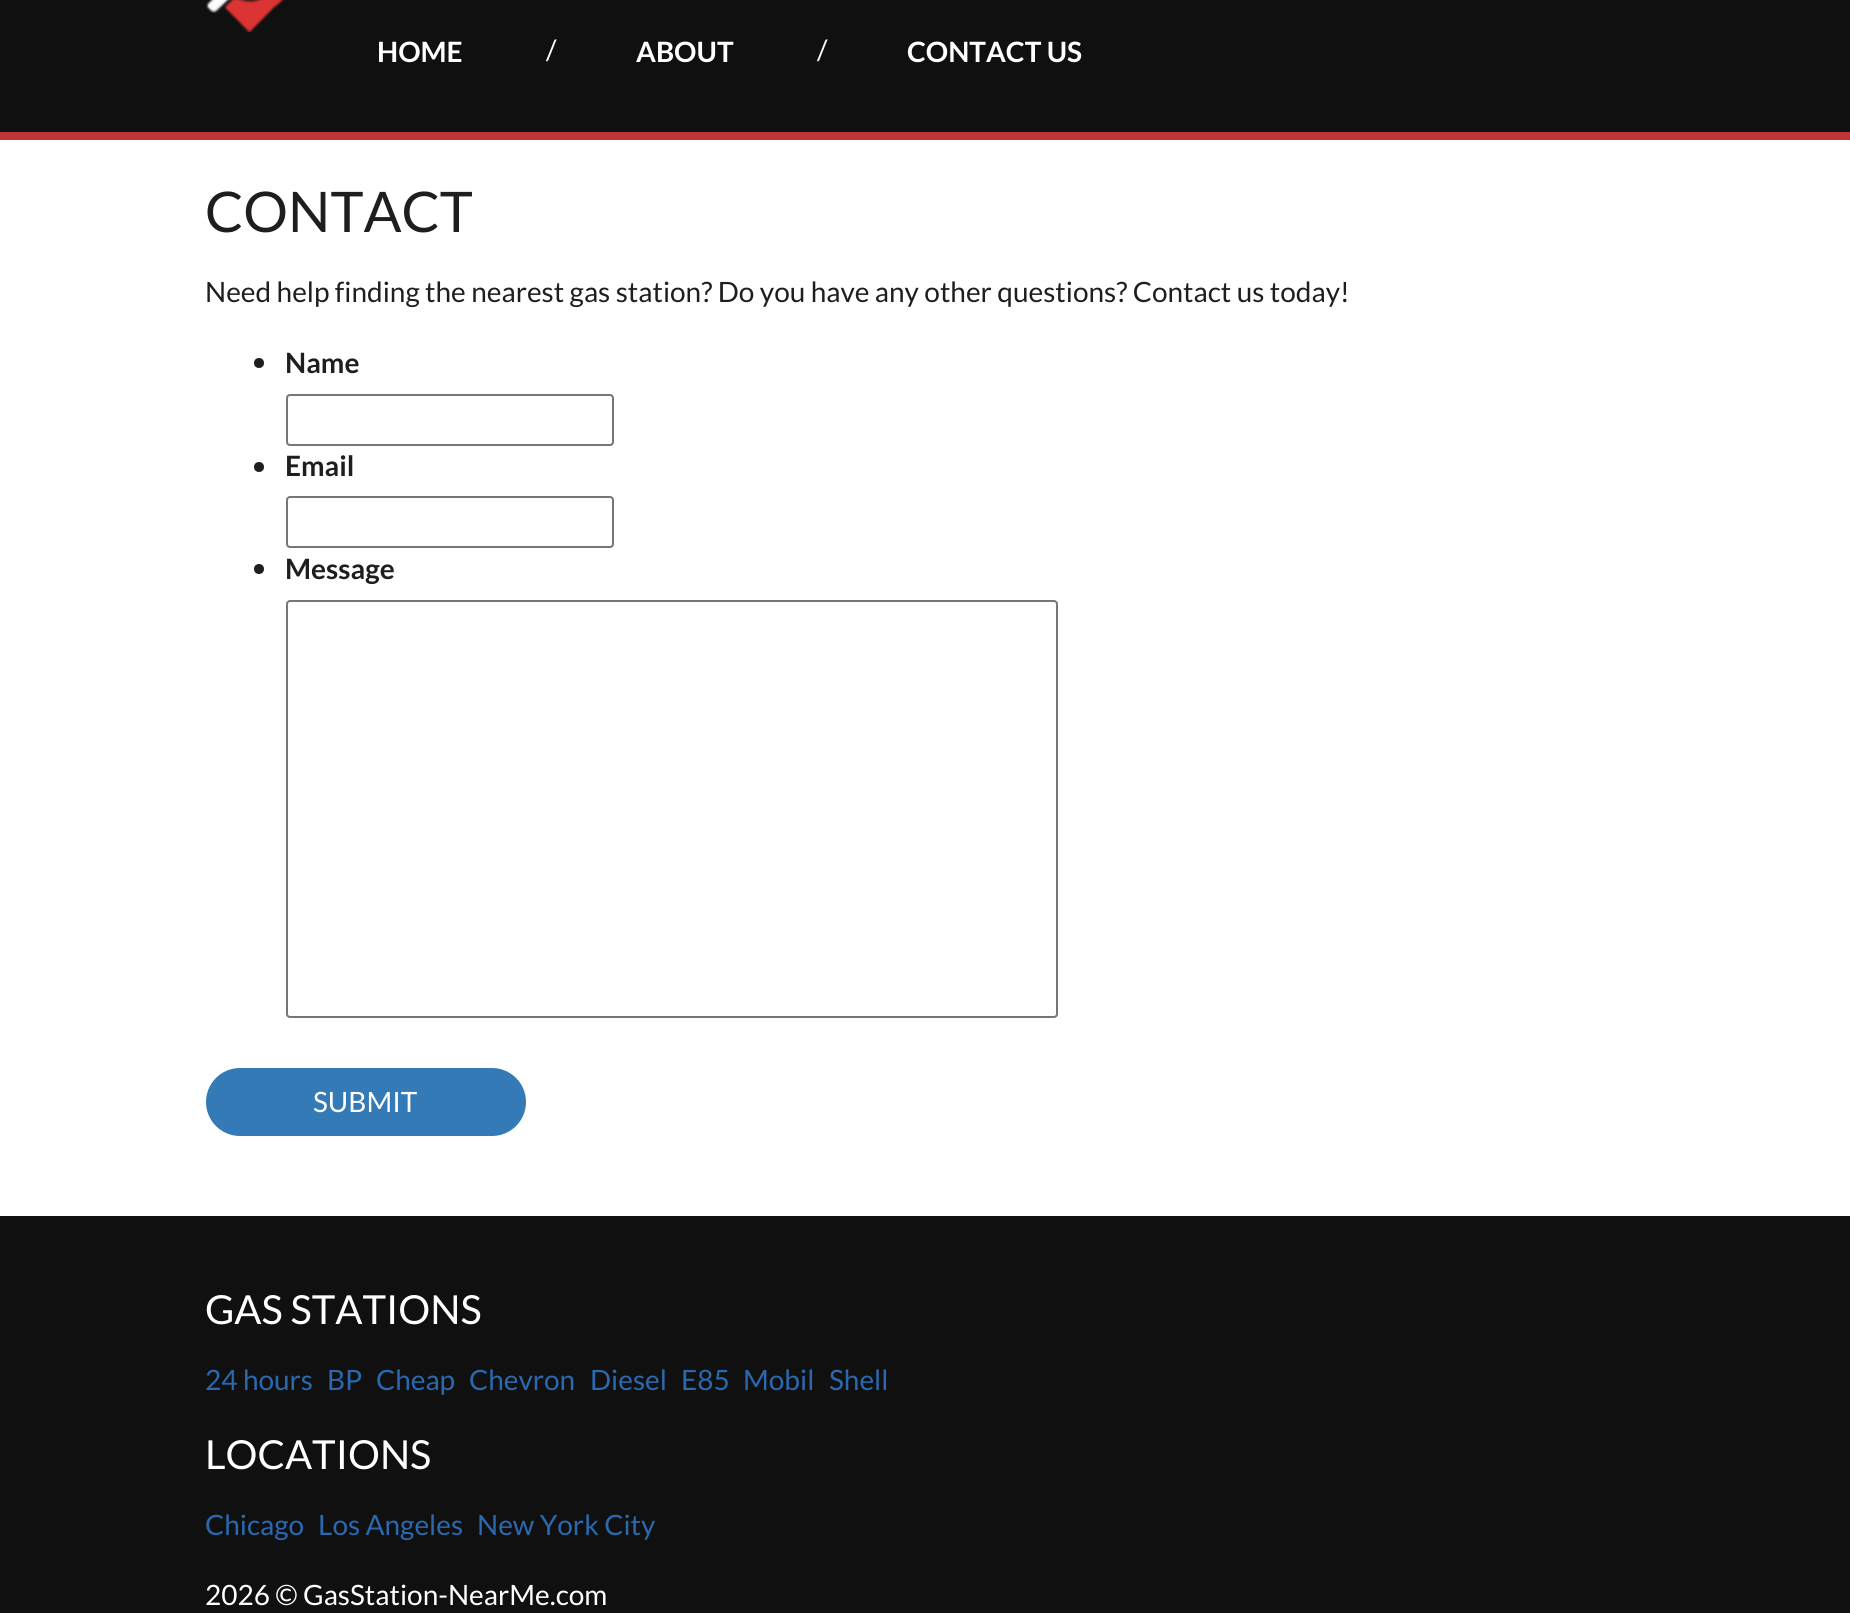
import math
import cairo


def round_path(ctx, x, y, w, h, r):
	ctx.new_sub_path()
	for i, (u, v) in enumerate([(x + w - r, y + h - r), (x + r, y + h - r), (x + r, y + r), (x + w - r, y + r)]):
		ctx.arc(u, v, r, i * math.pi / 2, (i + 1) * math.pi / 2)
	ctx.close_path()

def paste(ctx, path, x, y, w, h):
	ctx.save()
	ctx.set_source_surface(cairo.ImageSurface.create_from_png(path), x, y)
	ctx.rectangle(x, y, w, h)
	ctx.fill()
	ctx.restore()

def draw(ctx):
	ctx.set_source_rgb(1, 1, 1)
	ctx.paint()
	ctx.set_source_rgb(0.063, 0.063, 0.063)
	ctx.rectangle(0, 0, 1850, 132)
	ctx.fill()
	ctx.set_source_rgb(0.749, 0.212, 0.212)
	ctx.rectangle(0, 132, 1850, 8)
	ctx.fill()
	paste(ctx, 'media/1.png', 206, 0, 79, 32)
	ctx.select_font_face('Lato', cairo.FONT_SLANT_NORMAL, cairo.FONT_WEIGHT_BOLD)
	ctx.set_font_size(28)
	ctx.set_source_rgb(1, 1, 1)
	ctx.move_to(377, 62)
	ctx.show_text('HOME')
	ctx.select_font_face('Lato')
	ctx.move_to(546, 60)
	ctx.show_text('/')
	ctx.select_font_face('Lato', cairo.FONT_SLANT_NORMAL, cairo.FONT_WEIGHT_BOLD)
	ctx.move_to(636, 62)
	ctx.show_text('ABOUT')
	ctx.select_font_face('Lato')
	ctx.move_to(817, 60)
	ctx.show_text('/')
	ctx.select_font_face('Lato', cairo.FONT_SLANT_NORMAL, cairo.FONT_WEIGHT_BOLD)
	ctx.move_to(907, 62)
	ctx.show_text('CONTACT US')
	ctx.select_font_face('Lato')
	ctx.set_font_size(56)
	ctx.set_source_rgb(0.118, 0.118, 0.118)
	ctx.move_to(205, 232)
	ctx.show_text('CONTACT')
	ctx.set_font_size(28)
	ctx.move_to(205, 302)
	ctx.show_text('Need help finding the nearest gas station? Do you have any other questions? Contact us today!')
	ctx.new_path()
	ctx.arc(259, 363, 5, 0, 2 * math.pi)
	ctx.fill()
	ctx.select_font_face('Lato', cairo.FONT_SLANT_NORMAL, cairo.FONT_WEIGHT_BOLD)
	ctx.move_to(285, 373)
	ctx.show_text('Name')
	round_path(ctx, 287, 395, 326, 50, 3)
	ctx.set_source_rgb(0.463, 0.463, 0.463)
	ctx.stroke()
	ctx.set_source_rgb(0.118, 0.118, 0.118)
	ctx.arc(259, 467, 5, 0, 2 * math.pi)
	ctx.fill()
	ctx.move_to(285, 476)
	ctx.show_text('Email')
	round_path(ctx, 287, 497, 326, 50, 3)
	ctx.set_source_rgb(0.463, 0.463, 0.463)
	ctx.stroke()
	ctx.set_source_rgb(0.118, 0.118, 0.118)
	ctx.arc(259, 569, 5, 0, 2 * math.pi)
	ctx.fill()
	ctx.move_to(285, 579)
	ctx.show_text('Message')
	round_path(ctx, 287, 601, 770, 416, 3)
	ctx.set_source_rgb(0.463, 0.463, 0.463)
	ctx.stroke()
	ctx.set_source_rgb(0.2, 0.478, 0.718)
	round_path(ctx, 206, 1068, 320, 68, 34)
	ctx.fill()
	ctx.select_font_face('Lato')
	ctx.set_source_rgb(1, 1, 1)
	ctx.move_to(313, 1112)
	ctx.show_text('SUBMIT')
	ctx.set_source_rgb(0.063, 0.063, 0.063)
	ctx.rectangle(0, 1216, 1850, 397)
	ctx.fill()
	ctx.set_font_size(40)
	ctx.set_source_rgb(1, 1, 1)
	ctx.move_to(205, 1324)
	ctx.show_text('GAS STATIONS')
	ctx.set_font_size(28)
	ctx.set_source_rgb(0.165, 0.408, 0.686)
	for x, y, s in [
		(205, 1390, '24 hours'),
		(327, 1390, 'BP'),
		(376, 1390, 'Cheap'),
		(469, 1390, 'Chevron'),
		(590, 1390, 'Diesel'),
		(681, 1390, 'E85'),
		(743, 1390, 'Mobil'),
		(829, 1390, 'Shell'),
	]:
		ctx.move_to(x, y)
		ctx.show_text(s)
	ctx.set_font_size(40)
	ctx.set_source_rgb(1, 1, 1)
	ctx.move_to(205, 1469)
	ctx.show_text('LOCATIONS')
	ctx.set_font_size(28)
	ctx.set_source_rgb(0.165, 0.408, 0.686)
	for x, y, s in [
		(205, 1535, 'Chicago'),
		(318, 1535, 'Los Angeles'),
		(477, 1535, 'New York City'),
	]:
		ctx.move_to(x, y)
		ctx.show_text(s)
	ctx.set_source_rgb(1, 1, 1)
	ctx.move_to(205, 1605)
	ctx.show_text('2026 © GasStation-NearMe.com')


surface = cairo.ImageSurface(cairo.FORMAT_RGB24, 1850, 1613)
ctx = cairo.Context(surface)
options = cairo.FontOptions()
options.set_hint_metrics(cairo.HINT_METRICS_OFF)
options.set_hint_style(cairo.HINT_STYLE_NONE)
ctx.set_font_options(options)
ctx.set_miter_limit(4)
draw(ctx)
surface.write_to_png('image.png')
